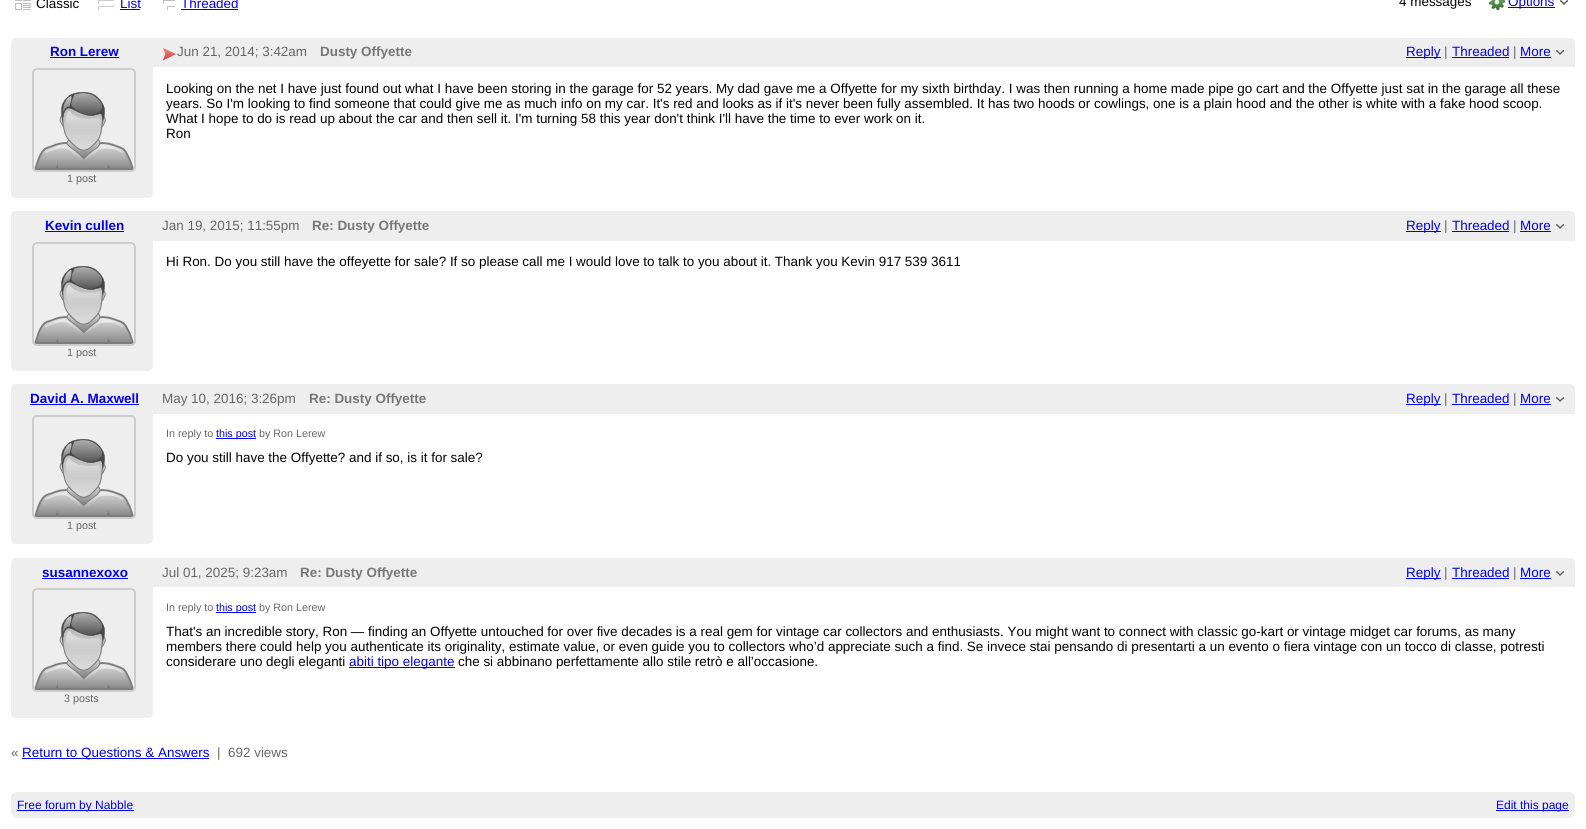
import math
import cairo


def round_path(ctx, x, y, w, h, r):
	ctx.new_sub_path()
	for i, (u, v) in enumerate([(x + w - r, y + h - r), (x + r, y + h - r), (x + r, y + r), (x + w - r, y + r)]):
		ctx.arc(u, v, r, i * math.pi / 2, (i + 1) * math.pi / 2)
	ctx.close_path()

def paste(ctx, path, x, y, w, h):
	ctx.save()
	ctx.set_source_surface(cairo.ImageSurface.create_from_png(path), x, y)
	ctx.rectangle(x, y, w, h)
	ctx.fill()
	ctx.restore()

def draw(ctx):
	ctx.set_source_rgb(1, 1, 1)
	ctx.paint()
	paste(ctx, 'media/1.png', 15, 0, 16, 10)
	ctx.select_font_face('Liberation Sans')
	ctx.set_font_size(13.44)
	ctx.set_source_rgb(0, 0, 0)
	ctx.move_to(36, 8)
	ctx.show_text('Classic')
	paste(ctx, 'media/2.png', 98, 0, 16, 10)
	ctx.set_source_rgb(0, 0, 0.933)
	ctx.move_to(120, 8)
	ctx.show_text('List')
	ctx.rectangle(120, 9, 20, 1)
	ctx.fill()
	paste(ctx, 'media/3.png', 163, 0, 12, 10)
	ctx.move_to(181, 8)
	ctx.show_text('Threaded')
	ctx.rectangle(181, 9, 57, 1)
	ctx.fill()
	ctx.set_source_rgb(0, 0, 0)
	ctx.move_to(1399, 6)
	ctx.show_text('4 messages')
	paste(ctx, 'media/4.png', 1489, 0, 16, 10)
	ctx.set_source_rgb(0, 0, 0.933)
	ctx.rectangle(1508, 7, 47, 1)
	ctx.fill()
	ctx.move_to(1508, 6)
	ctx.show_text('Options')
	paste(ctx, 'media/5.png', 1560, 0, 8, 5)
	ctx.set_source_rgb(0.933, 0.933, 0.933)
	ctx.new_path()
	ctx.move_to(16, 38)
	ctx.line_to(1570, 38)
	ctx.curve_to(1573, 38, 1575, 40, 1575, 43)
	ctx.line_to(1575, 67)
	ctx.line_to(11, 67)
	ctx.line_to(11, 43)
	ctx.curve_to(11, 40, 13, 38, 16, 38)
	ctx.close_path()
	ctx.fill()
	ctx.select_font_face('Liberation Sans', cairo.FONT_SLANT_NORMAL, cairo.FONT_WEIGHT_BOLD)
	ctx.set_source_rgb(0, 0, 0.933)
	ctx.move_to(50, 56)
	ctx.show_text('Ron Lerew')
	ctx.rectangle(50, 57, 69, 1)
	ctx.fill()
	paste(ctx, 'media/6.png', 163, 48, 14, 13)
	ctx.select_font_face('Liberation Sans')
	ctx.set_source_rgb(0.4, 0.4, 0.4)
	ctx.move_to(177, 56)
	ctx.show_text('Jun 21, 2014; 3:42am')
	ctx.select_font_face('Liberation Sans', cairo.FONT_SLANT_NORMAL, cairo.FONT_WEIGHT_BOLD)
	ctx.set_source_rgb(0.467, 0.467, 0.467)
	ctx.move_to(320, 56)
	ctx.show_text('Dusty Offyette')
	ctx.set_source_rgb(0, 0, 0.933)
	ctx.rectangle(1406, 57, 35, 1)
	ctx.fill()
	ctx.select_font_face('Liberation Sans')
	ctx.move_to(1406, 56)
	ctx.show_text('Reply')
	ctx.set_source_rgb(0.4, 0.4, 0.4)
	ctx.move_to(1444, 56)
	ctx.show_text('|')
	ctx.set_source_rgb(0, 0, 0.933)
	ctx.move_to(1452, 56)
	ctx.show_text('Threaded')
	ctx.rectangle(1452, 57, 57, 1)
	ctx.fill()
	ctx.set_source_rgb(0.4, 0.4, 0.4)
	ctx.move_to(1513, 56)
	ctx.show_text('|')
	ctx.set_source_rgb(0, 0, 0.933)
	ctx.move_to(1520, 56)
	ctx.show_text('More')
	ctx.rectangle(1520, 57, 31, 1)
	ctx.fill()
	paste(ctx, 'media/7.png', 1555, 49, 10, 7)
	ctx.set_source_rgb(0, 0, 0)
	for x, y, s in [
		(166, 93, 'Looking on the net I have just found out what I have been storing in the garage for 52 years. My dad gave me a Offyette for my sixth birthday. I was then running a home made pipe go cart and the Offyette just sat in the garage all these'),
		(166, 108, 'years. So I\'m looking to find someone that could give me as much info on my car. It\'s red and looks as if it\'s never been fully assembled. It has two hoods or cowlings, one is a plain hood and the other is white with a fake hood scoop.'),
		(166, 123, 'What I hope to do is read up about the car and then sell it. I\'m turning 58 this year don\'t think I\'ll have the time to ever work on it.'),
		(166, 138, 'Ron'),
	]:
		ctx.move_to(x, y)
		ctx.show_text(s)
	ctx.set_source_rgb(0.933, 0.933, 0.933)
	ctx.new_path()
	ctx.move_to(11, 67)
	ctx.line_to(153, 67)
	ctx.line_to(153, 193)
	ctx.curve_to(153, 196, 151, 198, 148, 198)
	ctx.line_to(16, 198)
	ctx.curve_to(13, 198, 11, 196, 11, 193)
	ctx.close_path()
	ctx.fill()
	round_path(ctx, 33, 69, 102, 102, 4)
	ctx.set_source_rgb(0.8, 0.8, 0.8)
	ctx.stroke()
	paste(ctx, 'media/8.png', 34, 92, 100, 78)
	ctx.set_font_size(10.75)
	ctx.set_source_rgb(0.4, 0.4, 0.4)
	ctx.move_to(67, 182)
	ctx.show_text('1 post')
	ctx.set_source_rgb(0.933, 0.933, 0.933)
	ctx.new_path()
	ctx.move_to(16, 211)
	ctx.line_to(1570, 211)
	ctx.curve_to(1573, 211, 1575, 213, 1575, 216)
	ctx.line_to(1575, 241)
	ctx.line_to(11, 241)
	ctx.line_to(11, 216)
	ctx.curve_to(11, 213, 13, 211, 16, 211)
	ctx.close_path()
	ctx.fill()
	ctx.select_font_face('Liberation Sans', cairo.FONT_SLANT_NORMAL, cairo.FONT_WEIGHT_BOLD)
	ctx.set_font_size(13.44)
	ctx.set_source_rgb(0, 0, 0.933)
	ctx.move_to(45, 230)
	ctx.show_text('Kevin cullen')
	ctx.rectangle(45, 231, 79, 1)
	ctx.fill()
	ctx.select_font_face('Liberation Sans')
	ctx.set_source_rgb(0.4, 0.4, 0.4)
	ctx.move_to(162, 230)
	ctx.show_text('Jan 19, 2015; 11:55pm')
	ctx.select_font_face('Liberation Sans', cairo.FONT_SLANT_NORMAL, cairo.FONT_WEIGHT_BOLD)
	ctx.set_source_rgb(0.467, 0.467, 0.467)
	ctx.move_to(312, 230)
	ctx.show_text('Re: Dusty Offyette')
	ctx.set_source_rgb(0, 0, 0.933)
	ctx.rectangle(1406, 231, 35, 1)
	ctx.fill()
	ctx.select_font_face('Liberation Sans')
	ctx.move_to(1406, 230)
	ctx.show_text('Reply')
	ctx.set_source_rgb(0.4, 0.4, 0.4)
	ctx.move_to(1444, 230)
	ctx.show_text('|')
	ctx.set_source_rgb(0, 0, 0.933)
	ctx.move_to(1452, 230)
	ctx.show_text('Threaded')
	ctx.rectangle(1452, 231, 57, 1)
	ctx.fill()
	ctx.set_source_rgb(0.4, 0.4, 0.4)
	ctx.move_to(1513, 230)
	ctx.show_text('|')
	ctx.set_source_rgb(0, 0, 0.933)
	ctx.move_to(1520, 230)
	ctx.show_text('More')
	ctx.rectangle(1520, 231, 31, 1)
	ctx.fill()
	paste(ctx, 'media/7.png', 1555, 223, 10, 7)
	ctx.set_source_rgb(0, 0, 0)
	ctx.move_to(166, 266)
	ctx.show_text('Hi Ron. Do you still have the offeyette for sale? If so please call me I would love to talk to you about it. Thank you Kevin 917 539 3611')
	ctx.set_source_rgb(0.933, 0.933, 0.933)
	ctx.new_path()
	ctx.move_to(11, 241)
	ctx.line_to(153, 241)
	ctx.line_to(153, 366)
	ctx.curve_to(153, 369, 151, 371, 148, 371)
	ctx.line_to(16, 371)
	ctx.curve_to(13, 371, 11, 369, 11, 366)
	ctx.close_path()
	ctx.fill()
	round_path(ctx, 33, 243, 102, 102, 4)
	ctx.set_source_rgb(0.8, 0.8, 0.8)
	ctx.stroke()
	paste(ctx, 'media/8.png', 34, 266, 100, 78)
	ctx.set_font_size(10.75)
	ctx.set_source_rgb(0.4, 0.4, 0.4)
	ctx.move_to(67, 356)
	ctx.show_text('1 post')
	ctx.set_source_rgb(0.933, 0.933, 0.933)
	ctx.new_path()
	ctx.move_to(16, 384)
	ctx.line_to(1570, 384)
	ctx.curve_to(1573, 384, 1575, 386, 1575, 389)
	ctx.line_to(1575, 414)
	ctx.line_to(11, 414)
	ctx.line_to(11, 389)
	ctx.curve_to(11, 386, 13, 384, 16, 384)
	ctx.close_path()
	ctx.fill()
	ctx.select_font_face('Liberation Sans', cairo.FONT_SLANT_NORMAL, cairo.FONT_WEIGHT_BOLD)
	ctx.set_font_size(13.44)
	ctx.set_source_rgb(0, 0, 0.933)
	ctx.move_to(30, 403)
	ctx.show_text('David A. Maxwell')
	ctx.rectangle(30, 404, 109, 1)
	ctx.fill()
	ctx.select_font_face('Liberation Sans')
	ctx.set_source_rgb(0.4, 0.4, 0.4)
	ctx.move_to(162, 403)
	ctx.show_text('May 10, 2016; 3:26pm')
	ctx.select_font_face('Liberation Sans', cairo.FONT_SLANT_NORMAL, cairo.FONT_WEIGHT_BOLD)
	ctx.set_source_rgb(0.467, 0.467, 0.467)
	ctx.move_to(309, 403)
	ctx.show_text('Re: Dusty Offyette')
	ctx.set_source_rgb(0, 0, 0.933)
	ctx.rectangle(1406, 404, 35, 1)
	ctx.fill()
	ctx.select_font_face('Liberation Sans')
	ctx.move_to(1406, 403)
	ctx.show_text('Reply')
	ctx.set_source_rgb(0.4, 0.4, 0.4)
	ctx.move_to(1444, 403)
	ctx.show_text('|')
	ctx.set_source_rgb(0, 0, 0.933)
	ctx.move_to(1452, 403)
	ctx.show_text('Threaded')
	ctx.rectangle(1452, 404, 57, 1)
	ctx.fill()
	ctx.set_source_rgb(0.4, 0.4, 0.4)
	ctx.move_to(1513, 403)
	ctx.show_text('|')
	ctx.set_source_rgb(0, 0, 0.933)
	ctx.move_to(1520, 403)
	ctx.show_text('More')
	ctx.rectangle(1520, 404, 31, 1)
	ctx.fill()
	paste(ctx, 'media/7.png', 1555, 396, 10, 7)
	ctx.set_font_size(10.75)
	ctx.set_source_rgb(0.4, 0.4, 0.4)
	ctx.move_to(166, 437)
	ctx.show_text('In reply to')
	ctx.set_source_rgb(0, 0, 0.933)
	ctx.rectangle(216, 438, 40, 1)
	ctx.fill()
	ctx.move_to(216, 437)
	ctx.show_text('this post')
	ctx.set_source_rgb(0.4, 0.4, 0.4)
	ctx.move_to(259, 437)
	ctx.show_text('by Ron Lerew')
	ctx.set_font_size(13.44)
	ctx.set_source_rgb(0, 0, 0)
	ctx.move_to(166, 462)
	ctx.show_text('Do you still have the Offyette? and if so, is it for sale?')
	ctx.set_source_rgb(0.933, 0.933, 0.933)
	ctx.new_path()
	ctx.move_to(11, 414)
	ctx.line_to(153, 414)
	ctx.line_to(153, 539)
	ctx.curve_to(153, 542, 151, 544, 148, 544)
	ctx.line_to(16, 544)
	ctx.curve_to(13, 544, 11, 542, 11, 539)
	ctx.close_path()
	ctx.fill()
	round_path(ctx, 33, 416, 102, 102, 4)
	ctx.set_source_rgb(0.8, 0.8, 0.8)
	ctx.stroke()
	paste(ctx, 'media/8.png', 34, 439, 100, 78)
	ctx.set_font_size(10.75)
	ctx.set_source_rgb(0.4, 0.4, 0.4)
	ctx.move_to(67, 529)
	ctx.show_text('1 post')
	ctx.set_source_rgb(0.933, 0.933, 0.933)
	ctx.new_path()
	ctx.move_to(16, 558)
	ctx.line_to(1570, 558)
	ctx.curve_to(1573, 558, 1575, 560, 1575, 563)
	ctx.line_to(1575, 587)
	ctx.line_to(11, 587)
	ctx.line_to(11, 563)
	ctx.curve_to(11, 560, 13, 558, 16, 558)
	ctx.close_path()
	ctx.fill()
	ctx.select_font_face('Liberation Sans', cairo.FONT_SLANT_NORMAL, cairo.FONT_WEIGHT_BOLD)
	ctx.set_font_size(13.44)
	ctx.set_source_rgb(0, 0, 0.933)
	ctx.move_to(42, 577)
	ctx.show_text('susannexoxo')
	ctx.rectangle(42, 578, 86, 1)
	ctx.fill()
	ctx.select_font_face('Liberation Sans')
	ctx.set_source_rgb(0.4, 0.4, 0.4)
	ctx.move_to(162, 577)
	ctx.show_text('Jul 01, 2025; 9:23am')
	ctx.select_font_face('Liberation Sans', cairo.FONT_SLANT_NORMAL, cairo.FONT_WEIGHT_BOLD)
	ctx.set_source_rgb(0.467, 0.467, 0.467)
	ctx.move_to(300, 577)
	ctx.show_text('Re: Dusty Offyette')
	ctx.set_source_rgb(0, 0, 0.933)
	ctx.rectangle(1406, 578, 35, 1)
	ctx.fill()
	ctx.select_font_face('Liberation Sans')
	ctx.move_to(1406, 577)
	ctx.show_text('Reply')
	ctx.set_source_rgb(0.4, 0.4, 0.4)
	ctx.move_to(1444, 577)
	ctx.show_text('|')
	ctx.set_source_rgb(0, 0, 0.933)
	ctx.move_to(1452, 577)
	ctx.show_text('Threaded')
	ctx.rectangle(1452, 578, 57, 1)
	ctx.fill()
	ctx.set_source_rgb(0.4, 0.4, 0.4)
	ctx.move_to(1513, 577)
	ctx.show_text('|')
	ctx.set_source_rgb(0, 0, 0.933)
	ctx.move_to(1520, 577)
	ctx.show_text('More')
	ctx.rectangle(1520, 578, 31, 1)
	ctx.fill()
	paste(ctx, 'media/7.png', 1555, 570, 10, 7)
	ctx.set_font_size(10.75)
	ctx.set_source_rgb(0.4, 0.4, 0.4)
	ctx.move_to(166, 611)
	ctx.show_text('In reply to')
	ctx.set_source_rgb(0, 0, 0.933)
	ctx.rectangle(216, 612, 40, 1)
	ctx.fill()
	ctx.move_to(216, 611)
	ctx.show_text('this post')
	ctx.set_source_rgb(0.4, 0.4, 0.4)
	ctx.move_to(259, 611)
	ctx.show_text('by Ron Lerew')
	ctx.set_font_size(13.44)
	ctx.set_source_rgb(0, 0, 0)
	for x, y, s in [
		(166, 636, 'That\'s an incredible story, Ron — finding an Offyette untouched for over five decades is a real gem for vintage car collectors and enthusiasts. You might want to connect with classic go-kart or vintage midget car forums, as many'),
		(166, 651, 'members there could help you authenticate its originality, estimate value, or even guide you to collectors who’d appreciate such a find. Se invece stai pensando di presentarti a un evento o fiera vintage con un tocco di classe, potresti'),
		(166, 666, 'considerare uno degli eleganti'),
	]:
		ctx.move_to(x, y)
		ctx.show_text(s)
	ctx.set_source_rgb(0, 0, 0.933)
	ctx.rectangle(349, 667, 106, 1)
	ctx.fill()
	ctx.move_to(349, 666)
	ctx.show_text('abiti tipo elegante')
	ctx.set_source_rgb(0, 0, 0)
	ctx.move_to(458, 666)
	ctx.show_text('che si abbinano perfettamente allo stile retrò e all’occasione.')
	ctx.set_source_rgb(0.933, 0.933, 0.933)
	ctx.new_path()
	ctx.move_to(11, 587)
	ctx.line_to(153, 587)
	ctx.line_to(153, 713)
	ctx.curve_to(153, 716, 151, 718, 148, 718)
	ctx.line_to(16, 718)
	ctx.curve_to(13, 718, 11, 716, 11, 713)
	ctx.close_path()
	ctx.fill()
	round_path(ctx, 33, 589, 102, 102, 4)
	ctx.set_source_rgb(0.8, 0.8, 0.8)
	ctx.stroke()
	paste(ctx, 'media/8.png', 34, 612, 100, 78)
	ctx.set_font_size(10.75)
	ctx.set_source_rgb(0.4, 0.4, 0.4)
	ctx.move_to(64, 702)
	ctx.show_text('3 posts')
	ctx.set_font_size(13.44)
	ctx.move_to(11, 757)
	ctx.show_text('«')
	ctx.set_source_rgb(0, 0, 0.933)
	ctx.rectangle(22, 758, 187, 1)
	ctx.fill()
	ctx.move_to(22, 757)
	ctx.show_text('Return to Questions & Answers')
	ctx.set_source_rgb(0.4, 0.4, 0.4)
	ctx.move_to(217, 757)
	ctx.show_text('|')
	ctx.move_to(228, 757)
	ctx.show_text('692 views')
	ctx.set_source_rgb(0.933, 0.933, 0.933)
	round_path(ctx, 11, 792, 1564, 26, 6)
	ctx.fill()
	ctx.set_source_rgb(0, 0, 0.933)
	ctx.rectangle(17, 810, 117, 1)
	ctx.fill()
	ctx.set_font_size(12)
	ctx.move_to(17, 809)
	ctx.show_text('Free forum by Nabble')
	ctx.rectangle(1496, 810, 73, 1)
	ctx.fill()
	ctx.move_to(1496, 809)
	ctx.show_text('Edit this page')


surface = cairo.ImageSurface(cairo.FORMAT_RGB24, 1586, 829)
ctx = cairo.Context(surface)
options = cairo.FontOptions()
options.set_hint_metrics(cairo.HINT_METRICS_OFF)
options.set_hint_style(cairo.HINT_STYLE_NONE)
ctx.set_font_options(options)
ctx.set_miter_limit(4)
draw(ctx)
surface.write_to_png('image.png')
